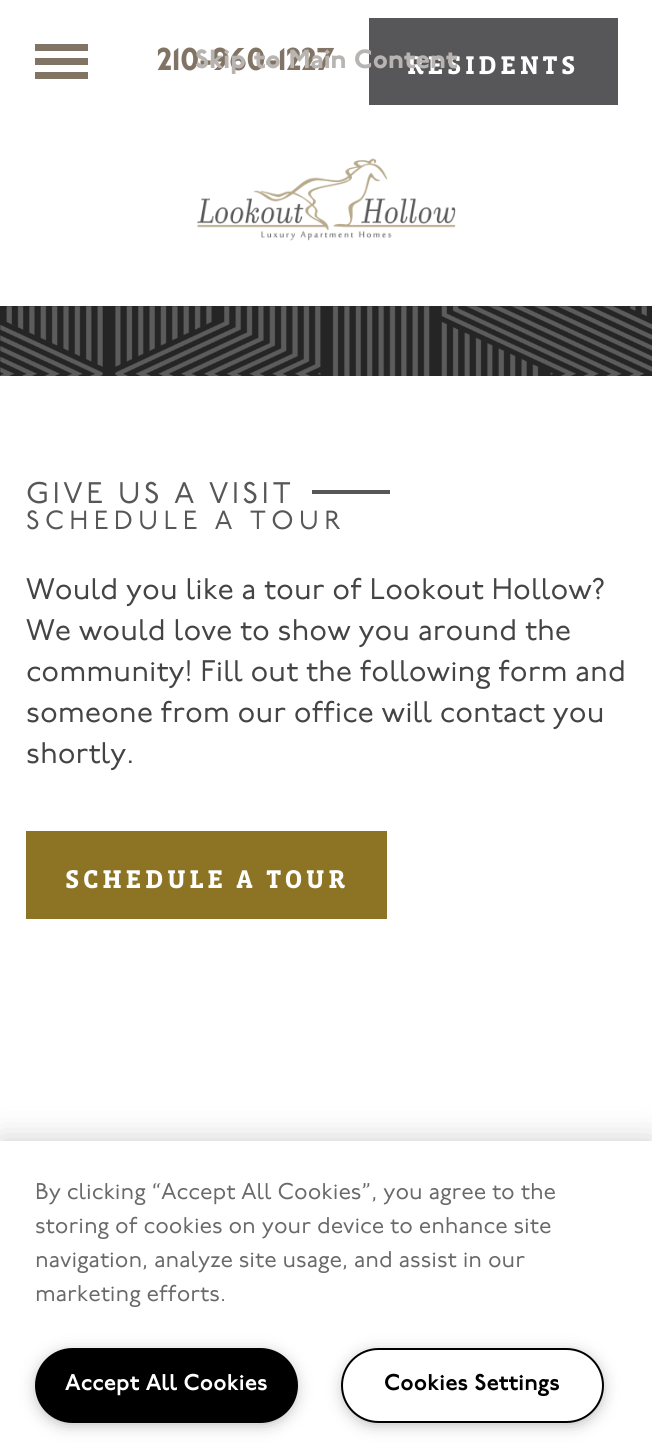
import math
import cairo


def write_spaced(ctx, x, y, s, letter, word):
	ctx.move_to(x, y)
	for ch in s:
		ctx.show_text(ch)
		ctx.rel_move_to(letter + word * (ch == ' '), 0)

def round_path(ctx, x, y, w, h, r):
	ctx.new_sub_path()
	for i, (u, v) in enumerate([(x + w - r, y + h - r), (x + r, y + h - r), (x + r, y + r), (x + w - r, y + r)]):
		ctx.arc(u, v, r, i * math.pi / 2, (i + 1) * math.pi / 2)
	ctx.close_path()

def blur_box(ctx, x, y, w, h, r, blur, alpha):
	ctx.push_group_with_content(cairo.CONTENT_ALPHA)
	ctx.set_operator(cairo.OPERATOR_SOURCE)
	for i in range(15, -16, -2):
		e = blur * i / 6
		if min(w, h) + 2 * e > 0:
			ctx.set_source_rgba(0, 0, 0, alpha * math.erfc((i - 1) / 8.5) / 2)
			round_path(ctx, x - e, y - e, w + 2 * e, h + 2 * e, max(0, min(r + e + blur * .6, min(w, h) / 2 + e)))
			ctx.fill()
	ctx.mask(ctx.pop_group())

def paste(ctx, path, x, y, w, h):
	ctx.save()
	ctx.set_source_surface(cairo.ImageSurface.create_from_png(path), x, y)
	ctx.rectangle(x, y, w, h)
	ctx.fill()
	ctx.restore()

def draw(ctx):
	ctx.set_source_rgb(1, 1, 1)
	ctx.paint()
	ctx.set_source_rgb(0.51, 0.455, 0.392)
	ctx.rectangle(35, 44, 53, 7)
	ctx.rectangle(35, 58, 53, 7)
	ctx.rectangle(35, 72, 53, 7)
	ctx.fill()
	ctx.select_font_face('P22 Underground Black')
	ctx.set_font_size(31.5)
	ctx.move_to(157, 70)
	ctx.show_text('210-960-1227')
	ctx.set_source_rgb(0.341, 0.341, 0.349)
	ctx.rectangle(369, 18, 249, 87)
	ctx.fill()
	ctx.select_font_face('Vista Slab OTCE', cairo.FONT_SLANT_NORMAL, cairo.FONT_WEIGHT_BOLD)
	ctx.set_font_size(26.25)
	ctx.set_source_rgb(1, 1, 1)
	write_spaced(ctx, 407, 74, 'RESIDENTS', 3.5, 0)
	paste(ctx, 'media/1.png', 197, 158, 259, 83)
	ctx.set_source_rgb(0.145, 0.145, 0.145)
	ctx.rectangle(0, 306, 652, 70)
	ctx.fill()
	paste(ctx, 'media/2.png', 0, 306, 652, 70)
	ctx.select_font_face('P22 Underground')
	ctx.set_font_size(29.75)
	ctx.set_source_rgb(0.341, 0.341, 0.349)
	write_spaced(ctx, 26, 503, 'GIVE US A VISIT', 3.5, 0)
	ctx.rectangle(312, 490, 78, 4)
	ctx.fill()
	ctx.set_font_size(26.25)
	write_spaced(ctx, 26, 529, 'SCHEDULE A TOUR', 5.25, 0)
	ctx.set_font_size(29.75)
	ctx.set_source_rgb(0.267, 0.267, 0.267)
	for x, y, s in [
		(26, 599, 'Would you like a tour of Lookout Hollow?'),
		(26, 640, 'We would love to show you around the'),
		(26, 681, 'community! Fill out the following form and'),
		(26, 722, 'someone from our office will contact you'),
		(26, 763, 'shortly.'),
	]:
		ctx.move_to(x, y)
		ctx.show_text(s)
	ctx.set_source_rgb(0.553, 0.455, 0.145)
	ctx.rectangle(26, 831, 361, 88)
	ctx.fill()
	ctx.select_font_face('Vista Slab OTCE', cairo.FONT_SLANT_NORMAL, cairo.FONT_WEIGHT_BOLD)
	ctx.set_font_size(26.25)
	ctx.set_source_rgb(1, 1, 1)
	write_spaced(ctx, 65, 888, 'SCHEDULE A TOUR', 3.5, 0)
	ctx.select_font_face('P22 Underground Black')
	ctx.set_source_rgb(0.722, 0.706, 0.694)
	ctx.move_to(195, 68)
	ctx.show_text('Skip to Main Content')
	ctx.set_source_rgb(0, 0, 0)
	blur_box(ctx, 0, 1141, 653, 308, 0, 16, 0.2)
	ctx.set_source_rgb(1, 1, 1)
	ctx.rectangle(0, 1141, 652, 308)
	ctx.fill()
	ctx.select_font_face('P22 Underground')
	ctx.set_font_size(22.75)
	ctx.set_source_rgb(0.412, 0.412, 0.412)
	for x, y, s in [
		(35, 1199, 'By clicking “Accept All Cookies”, you agree to the'),
		(35, 1233, 'storing of cookies on your device to enhance site'),
		(35, 1267, 'navigation, analyze site usage, and assist in our'),
		(35, 1301, 'marketing efforts.'),
	]:
		ctx.move_to(x, y)
		ctx.show_text(s)
	ctx.set_source_rgb(0.6, 0.6, 0.6)
	blur_box(ctx, 40, 1356, 252, 65, 32.5, 9, 1)
	ctx.set_source_rgb(0, 0, 0)
	round_path(ctx, 36, 1349, 261, 73, 36.5)
	ctx.fill_preserve()
	ctx.stroke()
	ctx.select_font_face('P22 Underground SemiBold')
	ctx.set_source_rgb(1, 1, 1)
	ctx.move_to(65, 1390)
	ctx.show_text('Accept All Cookies')
	ctx.set_source_rgb(0.6, 0.6, 0.6)
	blur_box(ctx, 347, 1356, 252, 65, 32.5, 9, 1)
	ctx.set_source_rgb(1, 1, 1)
	round_path(ctx, 342, 1349, 261, 73, 36.5)
	ctx.fill_preserve()
	ctx.set_source_rgb(0, 0, 0)
	ctx.stroke()
	ctx.move_to(384, 1390)
	ctx.show_text('Cookies Settings')


surface = cairo.ImageSurface(cairo.FORMAT_RGB24, 652, 1449)
ctx = cairo.Context(surface)
options = cairo.FontOptions()
options.set_hint_metrics(cairo.HINT_METRICS_OFF)
options.set_hint_style(cairo.HINT_STYLE_NONE)
ctx.set_font_options(options)
ctx.set_miter_limit(4)
draw(ctx)
surface.write_to_png('image.png')
